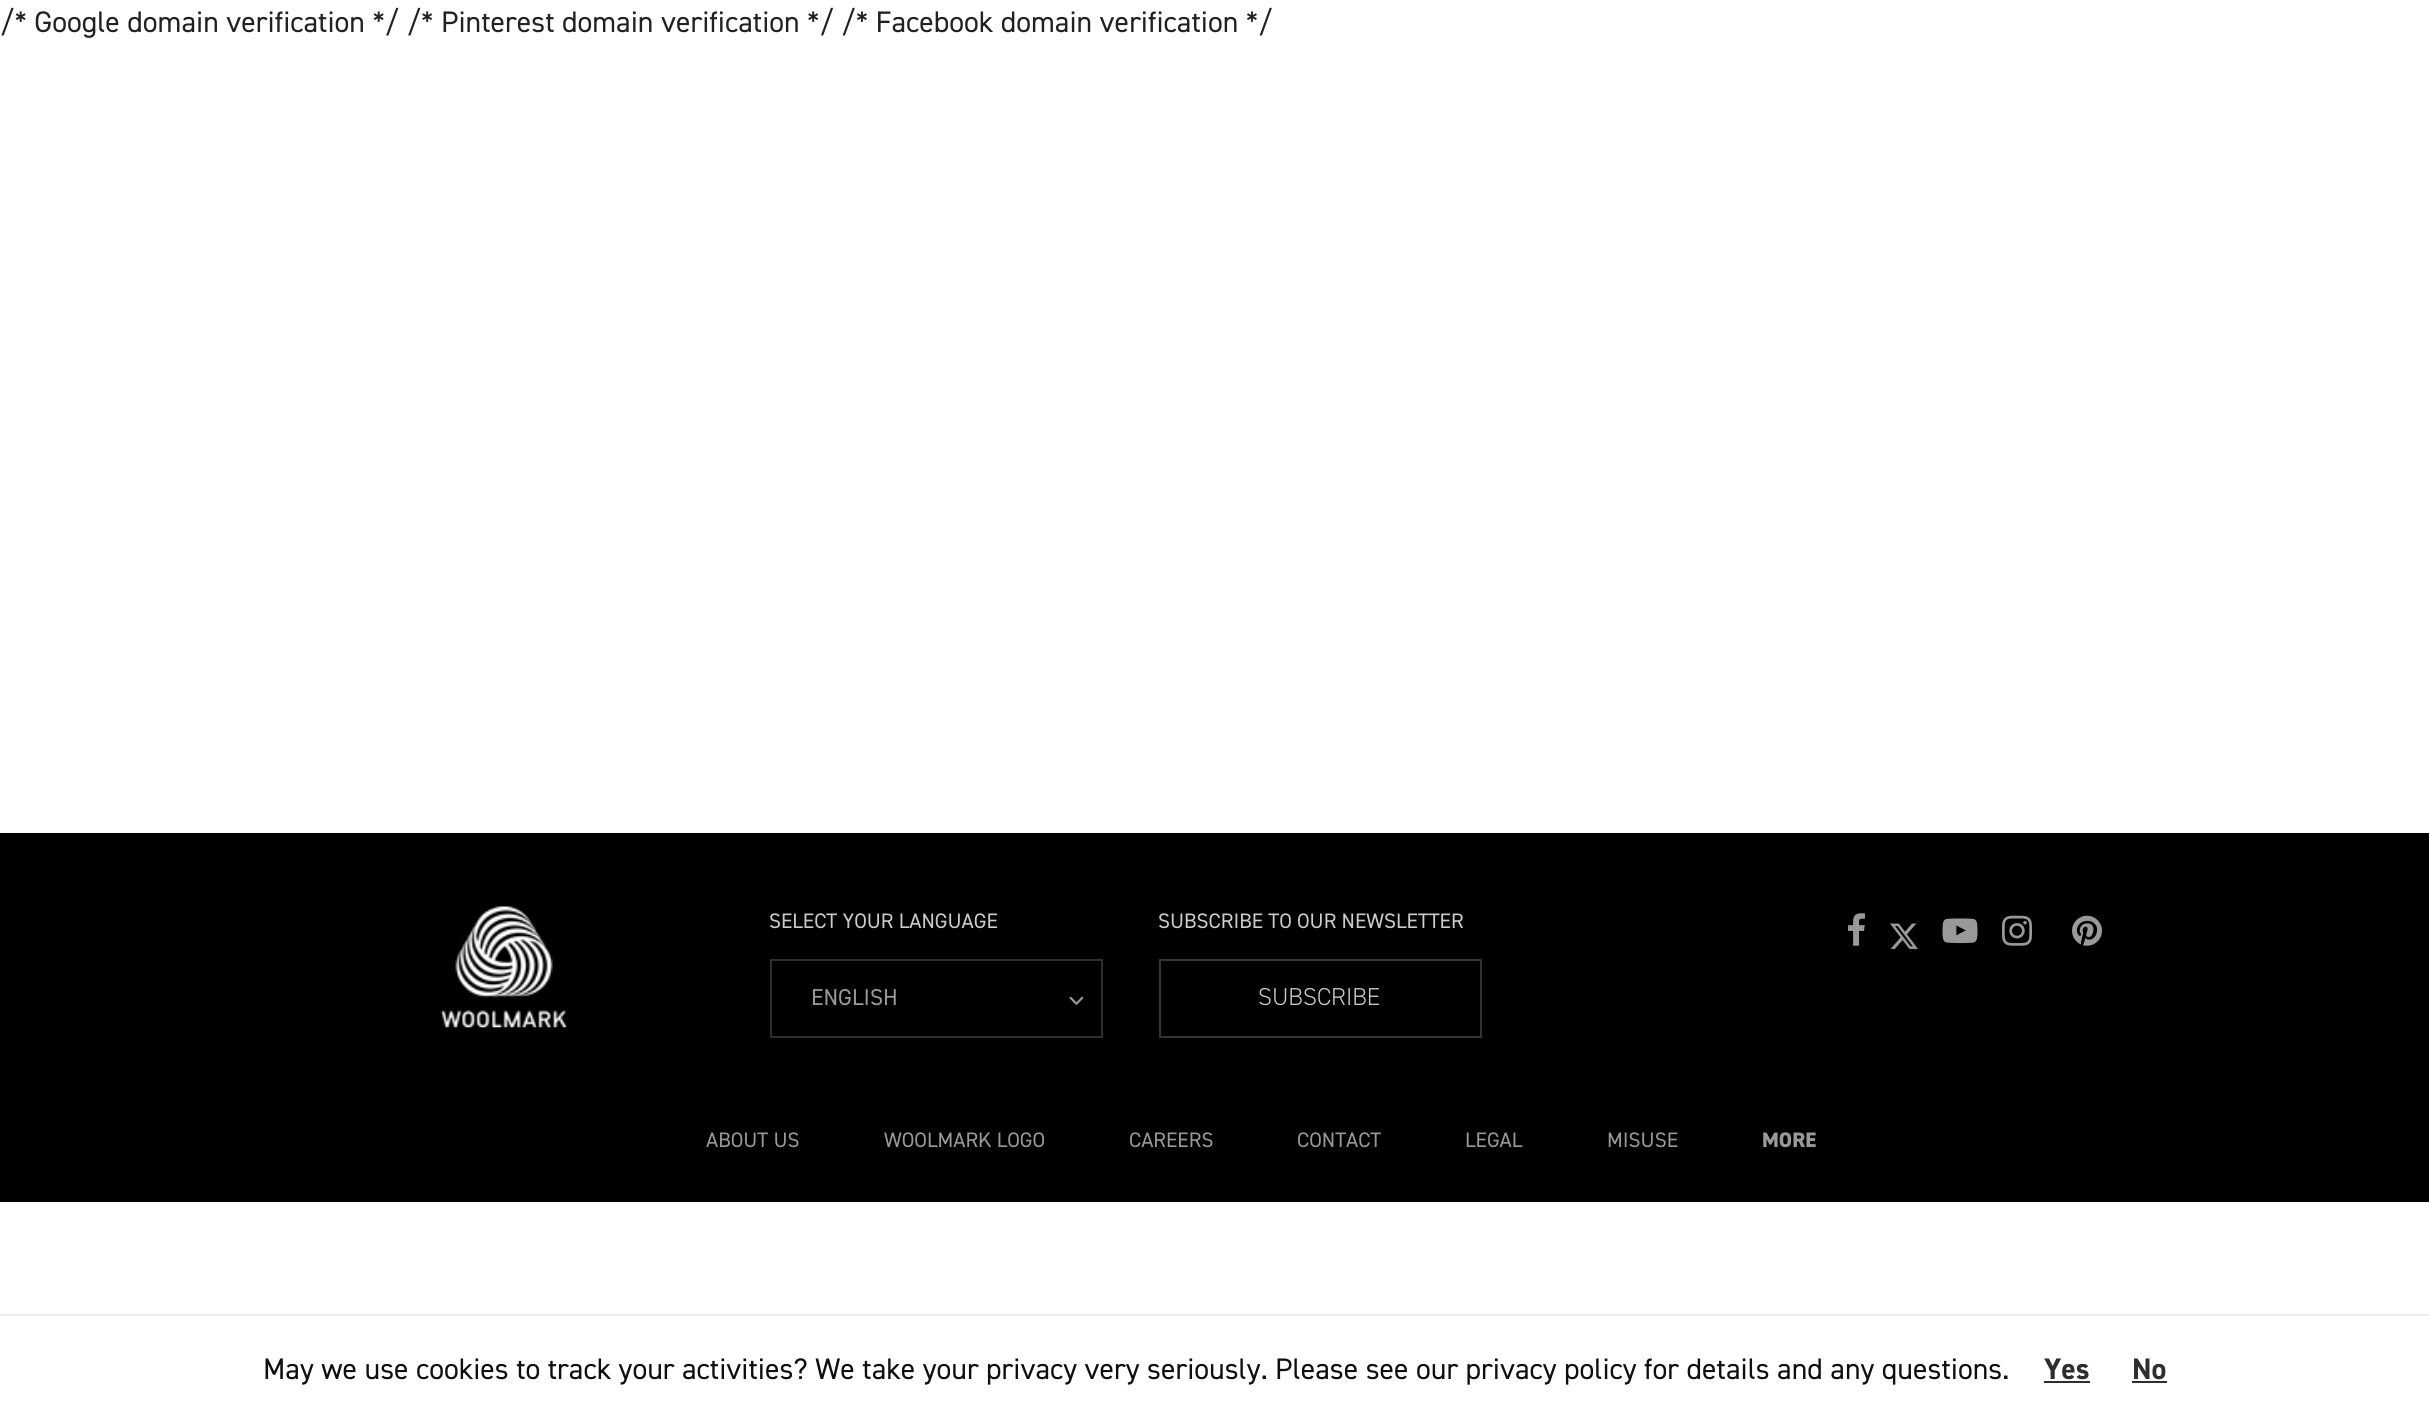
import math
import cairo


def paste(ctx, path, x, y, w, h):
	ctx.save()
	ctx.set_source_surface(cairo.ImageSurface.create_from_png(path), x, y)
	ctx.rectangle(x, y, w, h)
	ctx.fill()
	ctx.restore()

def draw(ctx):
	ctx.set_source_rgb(1, 1, 1)
	ctx.paint()
	ctx.select_font_face('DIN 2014')
	ctx.set_font_size(29.75)
	ctx.set_source_rgb(0.129, 0.129, 0.129)
	ctx.move_to(0, 32)
	ctx.show_text('/* Google domain verification */ /* Pinterest domain verification */ /* Facebook domain verification */')
	ctx.set_source_rgb(0, 0, 0)
	ctx.rectangle(0, 833, 2429, 369)
	ctx.fill()
	paste(ctx, 'media/1.png', 440, 906, 128, 122)
	ctx.set_font_size(21)
	ctx.set_source_rgb(0.8, 0.8, 0.8)
	ctx.move_to(769, 928)
	ctx.show_text('SELECT YOUR LANGUAGE')
	ctx.rectangle(771, 960, 331, 77)
	ctx.set_source_rgb(0.173, 0.18, 0.204)
	ctx.stroke()
	ctx.set_font_size(23)
	ctx.set_source_rgb(0.6, 0.6, 0.6)
	ctx.move_to(811, 1005)
	ctx.show_text('ENGLISH')
	paste(ctx, 'media/2.png', 1069, 996, 15, 10)
	ctx.set_font_size(21)
	ctx.set_source_rgb(0.8, 0.8, 0.8)
	ctx.move_to(1158, 928)
	ctx.show_text('SUBSCRIBE TO OUR NEWSLETTER')
	ctx.rectangle(1160, 960, 321, 77)
	ctx.set_source_rgb(0.2, 0.2, 0.2)
	ctx.stroke()
	ctx.select_font_face('DIN 2014 Light')
	ctx.set_font_size(24.5)
	ctx.set_source_rgb(0.8, 0.8, 0.8)
	ctx.move_to(1258, 1005)
	ctx.show_text('SUBSCRIBE')
	ctx.select_font_face('DIN 2014')
	ctx.set_font_size(21)
	ctx.set_source_rgb(0.6, 0.6, 0.6)
	for x, y, s in [
		(706, 1147, 'ABOUT US'),
		(884, 1147, 'WOOLMARK LOGO'),
		(1129, 1147, 'CAREERS'),
		(1297, 1147, 'CONTACT'),
		(1465, 1147, 'LEGAL'),
		(1607, 1147, 'MISUSE'),
	]:
		ctx.move_to(x, y)
		ctx.show_text(s)
	ctx.select_font_face('DIN 2014 ExtraBold')
	ctx.move_to(1762, 1147)
	ctx.show_text('MORE')
	paste(ctx, 'media/3.png', 1848, 913, 17, 33)
	paste(ctx, 'media/4.png', 1890, 923, 28, 26)
	paste(ctx, 'media/5.png', 1942, 918, 36, 26)
	paste(ctx, 'media/6.png', 2002, 915, 30, 31)
	paste(ctx, 'media/7.png', 2072, 915, 30, 31)
	ctx.set_source_rgb(0.937, 0.937, 0.937)
	ctx.rectangle(0, 1314, 2429, 2)
	ctx.fill()
	ctx.select_font_face('DIN 2014')
	ctx.set_font_size(29.75)
	ctx.set_source_rgb(0.059, 0.059, 0.059)
	ctx.move_to(263, 1379)
	ctx.show_text('May we use cookies to track your activities? We take your privacy very seriously. Please see our privacy policy for details and any questions.')
	ctx.select_font_face('DIN 2014', cairo.FONT_SLANT_NORMAL, cairo.FONT_WEIGHT_BOLD)
	ctx.set_source_rgb(0.18, 0.18, 0.18)
	ctx.move_to(2044, 1379)
	ctx.show_text('Yes')
	ctx.rectangle(2044, 1381, 46, 2)
	ctx.fill()
	ctx.move_to(2132, 1379)
	ctx.show_text('No')
	ctx.rectangle(2132, 1381, 35, 2)
	ctx.fill()


surface = cairo.ImageSurface(cairo.FORMAT_RGB24, 2429, 1418)
ctx = cairo.Context(surface)
options = cairo.FontOptions()
options.set_hint_metrics(cairo.HINT_METRICS_OFF)
options.set_hint_style(cairo.HINT_STYLE_NONE)
ctx.set_font_options(options)
ctx.set_miter_limit(4)
draw(ctx)
surface.write_to_png('image.png')
